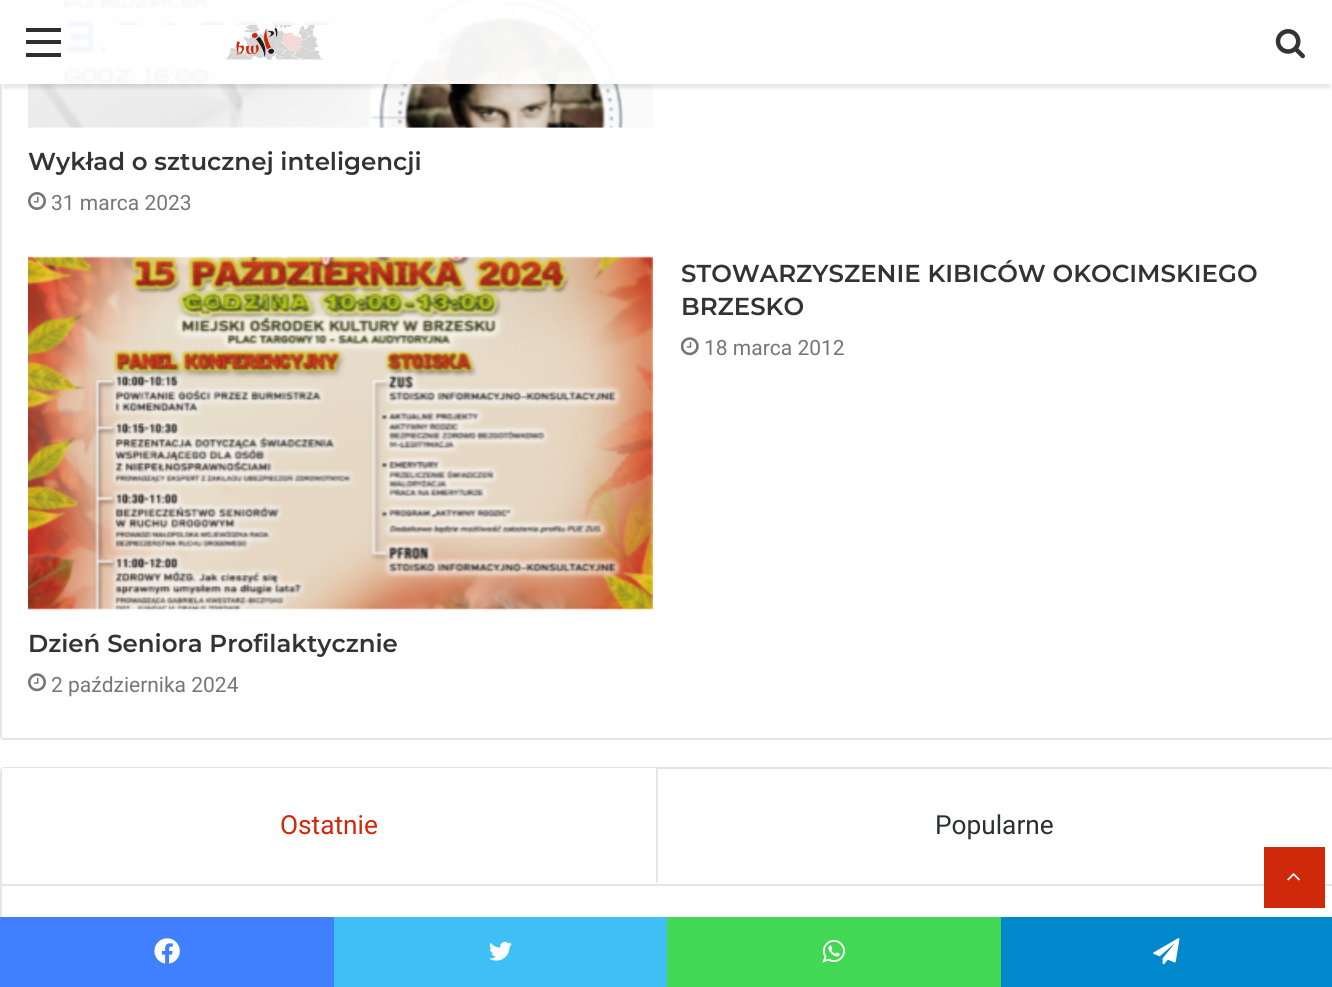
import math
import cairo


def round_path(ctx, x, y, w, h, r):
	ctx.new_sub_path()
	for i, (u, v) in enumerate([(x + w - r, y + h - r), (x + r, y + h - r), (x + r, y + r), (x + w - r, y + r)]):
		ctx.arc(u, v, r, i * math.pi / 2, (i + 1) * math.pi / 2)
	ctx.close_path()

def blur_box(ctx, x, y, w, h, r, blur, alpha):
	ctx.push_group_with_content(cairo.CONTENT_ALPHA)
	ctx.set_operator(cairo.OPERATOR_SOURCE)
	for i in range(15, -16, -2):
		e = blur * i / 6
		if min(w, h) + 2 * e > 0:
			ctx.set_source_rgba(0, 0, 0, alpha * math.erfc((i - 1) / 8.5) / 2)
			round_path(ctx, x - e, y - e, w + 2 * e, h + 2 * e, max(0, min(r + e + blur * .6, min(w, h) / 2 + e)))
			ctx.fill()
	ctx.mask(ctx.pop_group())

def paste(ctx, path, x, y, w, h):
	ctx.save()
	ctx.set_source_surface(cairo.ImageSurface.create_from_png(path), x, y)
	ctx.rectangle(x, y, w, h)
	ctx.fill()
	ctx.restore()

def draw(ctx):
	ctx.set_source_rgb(1, 1, 1)
	ctx.paint()
	round_path(ctx, 1, -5, 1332, 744, 3)
	ctx.set_source_rgb(0.902, 0.902, 0.902)
	ctx.stroke()
	paste(ctx, 'media/3.png', 28, 0, 625, 128)
	ctx.save()
	ctx.rectangle(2, 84, 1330, 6)
	ctx.clip()
	ctx.set_source_rgb(0, 0, 0)
	blur_box(ctx, 4, 11, 1326, 77, 0, 2, 0.1)
	ctx.restore()
	ctx.set_source_rgba(1, 1, 1, 0.95)
	ctx.rectangle(0, 0, 653, 84)
	ctx.fill()
	ctx.set_source_rgb(0.173, 0.184, 0.204)
	ctx.rectangle(26, 40, 35, 4)
	ctx.rectangle(26, 28, 35, 4)
	ctx.rectangle(26, 53, 35, 4)
	ctx.fill()
	paste(ctx, 'media/1.png', 105, 25, 333, 35)
	paste(ctx, 'media/2.png', 1275, 29, 30, 30)
	ctx.select_font_face('Montserrat SemiBold')
	ctx.set_font_size(24.5)
	ctx.set_source_rgb(0.2, 0.2, 0.2)
	ctx.move_to(28, 170)
	ctx.show_text('Wykład o sztucznej inteligencji')
	paste(ctx, 'media/4.png', 28, 192, 18, 18)
	ctx.select_font_face('Roboto')
	ctx.set_font_size(21)
	ctx.set_source_rgb(0.463, 0.463, 0.463)
	ctx.move_to(51, 210)
	ctx.show_text('31 marca 2023')
	ctx.select_font_face('Montserrat SemiBold')
	ctx.set_font_size(24.5)
	ctx.set_source_rgb(0.2, 0.2, 0.2)
	ctx.move_to(681, 282)
	ctx.show_text('STOWARZYSZENIE KIBICÓW OKOCIMSKIEGO')
	ctx.move_to(681, 315)
	ctx.show_text('BRZESKO')
	paste(ctx, 'media/5.png', 681, 337, 18, 19)
	ctx.select_font_face('Roboto')
	ctx.set_font_size(21)
	ctx.set_source_rgb(0.463, 0.463, 0.463)
	ctx.move_to(704, 355)
	ctx.show_text('18 marca 2012')
	paste(ctx, 'media/6.png', 28, 256, 625, 355)
	ctx.select_font_face('Montserrat SemiBold')
	ctx.set_font_size(24.5)
	ctx.set_source_rgb(0.2, 0.2, 0.2)
	ctx.move_to(28, 652)
	ctx.show_text('Dzień Seniora Profilaktycznie')
	paste(ctx, 'media/7.png', 28, 673, 18, 19)
	ctx.select_font_face('Roboto')
	ctx.set_font_size(21)
	ctx.set_source_rgb(0.463, 0.463, 0.463)
	ctx.move_to(51, 692)
	ctx.show_text('2 października 2024')
	round_path(ctx, 1, 768, 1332, 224, 3)
	ctx.set_source_rgb(0.902, 0.902, 0.902)
	ctx.stroke()
	ctx.rectangle(2, 884, 1330, 2)
	ctx.fill()
	ctx.set_source_rgb(1, 1, 1)
	ctx.rectangle(2, 768, 656, 3)
	ctx.fill()
	ctx.set_source_rgb(0.902, 0.902, 0.902)
	ctx.new_path()
	ctx.move_to(658, 768)
	ctx.line_to(658, 884)
	ctx.line_to(656, 882)
	ctx.line_to(656, 768)
	ctx.close_path()
	ctx.fill()
	ctx.set_font_size(26.25)
	ctx.set_source_rgb(0.816, 0.157, 0.043)
	ctx.move_to(280, 834)
	ctx.show_text('Ostatnie')
	ctx.set_source_rgb(0.173, 0.184, 0.204)
	ctx.move_to(935, 834)
	ctx.show_text('Popularne')
	ctx.set_source_rgb(0.816, 0.157, 0.043)
	ctx.rectangle(1264, 847, 61, 61)
	ctx.fill()
	paste(ctx, 'media/8.png', 1287, 873, 13, 8)
	ctx.set_source_rgb(0.251, 0.502, 1)
	ctx.rectangle(0, 917, 334, 70)
	ctx.fill()
	paste(ctx, 'media/9.png', 154, 938, 26, 26)
	ctx.set_source_rgb(0.251, 0.749, 0.961)
	ctx.rectangle(334, 917, 333, 70)
	ctx.fill()
	paste(ctx, 'media/10.png', 489, 941, 23, 20)
	ctx.set_source_rgb(0.263, 0.847, 0.329)
	ctx.rectangle(667, 917, 334, 70)
	ctx.fill()
	paste(ctx, 'media/11.png', 822, 939, 23, 24)
	ctx.set_source_rgb(0, 0.533, 0.8)
	ctx.rectangle(1001, 917, 331, 70)
	ctx.fill()
	paste(ctx, 'media/12.png', 1153, 938, 27, 27)


surface = cairo.ImageSurface(cairo.FORMAT_RGB24, 1332, 987)
ctx = cairo.Context(surface)
options = cairo.FontOptions()
options.set_hint_metrics(cairo.HINT_METRICS_OFF)
options.set_hint_style(cairo.HINT_STYLE_NONE)
ctx.set_font_options(options)
ctx.set_miter_limit(4)
draw(ctx)
surface.write_to_png('image.png')
